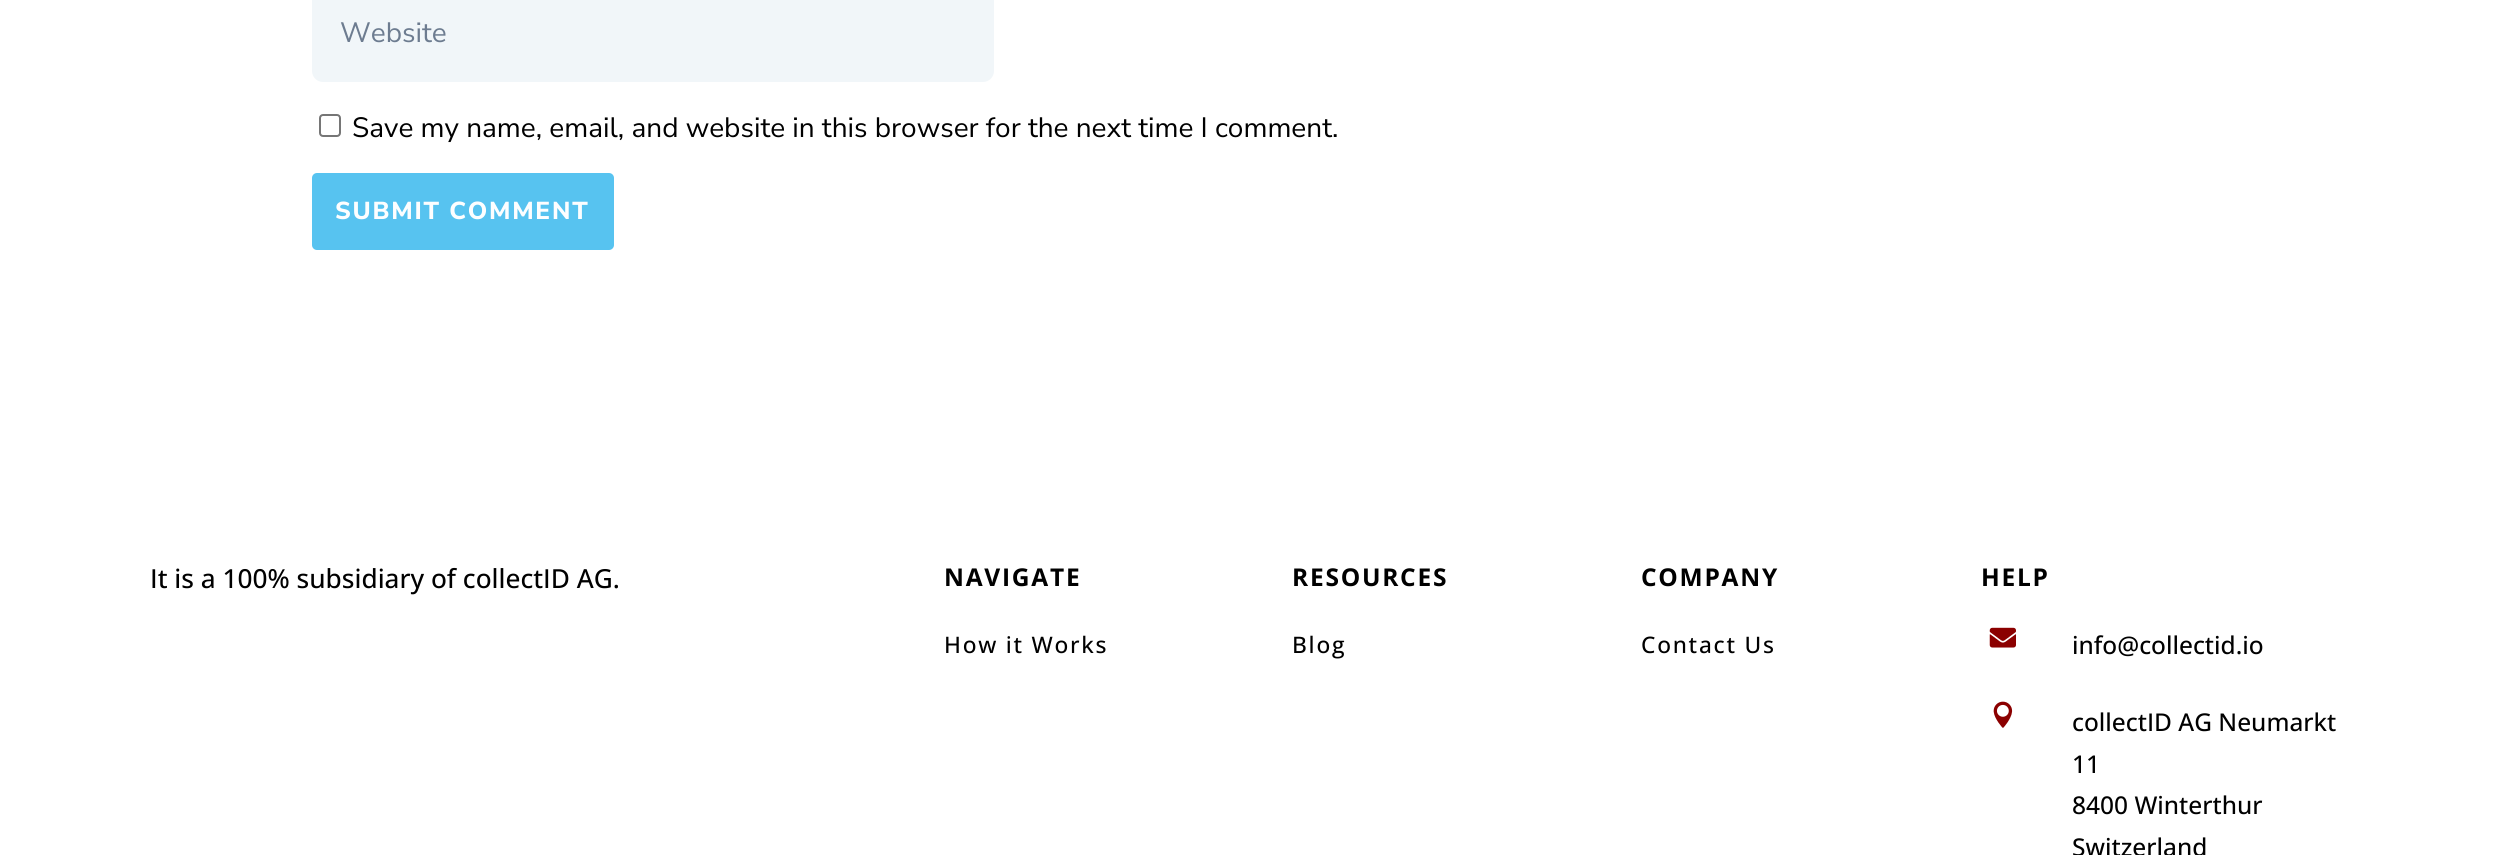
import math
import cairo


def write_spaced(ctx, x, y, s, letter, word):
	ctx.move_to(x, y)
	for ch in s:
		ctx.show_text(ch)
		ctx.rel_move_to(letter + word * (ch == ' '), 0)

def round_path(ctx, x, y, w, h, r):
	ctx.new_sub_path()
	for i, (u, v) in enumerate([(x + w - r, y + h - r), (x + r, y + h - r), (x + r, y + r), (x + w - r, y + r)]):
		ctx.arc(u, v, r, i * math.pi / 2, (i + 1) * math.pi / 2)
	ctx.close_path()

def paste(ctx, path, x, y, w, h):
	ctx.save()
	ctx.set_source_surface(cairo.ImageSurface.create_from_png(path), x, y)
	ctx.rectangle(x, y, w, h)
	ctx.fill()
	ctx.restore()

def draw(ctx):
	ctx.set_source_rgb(1, 1, 1)
	ctx.paint()
	ctx.set_source_rgb(0.945, 0.961, 0.973)
	round_path(ctx, 312, -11, 682, 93, 11)
	ctx.fill()
	ctx.select_font_face('Nunito Sans')
	ctx.set_font_size(28)
	ctx.set_source_rgb(0.427, 0.486, 0.565)
	ctx.move_to(340, 42)
	ctx.show_text('Website')
	round_path(ctx, 320, 115, 20, 21, 3)
	ctx.set_source_rgb(0.463, 0.463, 0.463)
	ctx.stroke()
	ctx.set_source_rgb(0, 0, 0)
	ctx.move_to(352, 137)
	ctx.show_text('Save my name, email, and website in this browser for the next time I comment.')
	ctx.set_source_rgb(0.341, 0.765, 0.941)
	round_path(ctx, 312, 173, 302, 77, 5)
	ctx.fill()
	ctx.select_font_face('Nunito Sans ExtraBold')
	ctx.set_font_size(24.5)
	ctx.set_source_rgb(0.992, 0.996, 1)
	write_spaced(ctx, 335, 219, 'SUBMIT COMMENT', 1.75, 0)
	ctx.select_font_face('Open Sans Medium')
	ctx.set_font_size(26.25)
	ctx.set_source_rgb(0, 0, 0)
	ctx.move_to(150, 588)
	ctx.show_text('It is a 100% subsidiary of collectID AG.')
	ctx.select_font_face('Open Sans', cairo.FONT_SLANT_NORMAL, cairo.FONT_WEIGHT_BOLD)
	ctx.set_font_size(24.5)
	write_spaced(ctx, 944, 586, 'NAVIGATE', 1.75, 0)
	ctx.select_font_face('Open Sans Medium')
	ctx.set_font_size(22.75)
	write_spaced(ctx, 944, 653, 'How it Works', 1.75, 0)
	ctx.select_font_face('Open Sans', cairo.FONT_SLANT_NORMAL, cairo.FONT_WEIGHT_BOLD)
	ctx.set_font_size(24.5)
	write_spaced(ctx, 1292, 586, 'RESOURCES', 1.75, 0)
	ctx.select_font_face('Open Sans Medium')
	ctx.set_font_size(22.75)
	write_spaced(ctx, 1292, 653, 'Blog', 1.75, 0)
	ctx.select_font_face('Open Sans', cairo.FONT_SLANT_NORMAL, cairo.FONT_WEIGHT_BOLD)
	ctx.set_font_size(24.5)
	write_spaced(ctx, 1641, 586, 'COMPANY', 1.75, 0)
	ctx.select_font_face('Open Sans Medium')
	ctx.set_font_size(22.75)
	write_spaced(ctx, 1641, 653, 'Contact Us', 1.75, 0)
	ctx.select_font_face('Open Sans', cairo.FONT_SLANT_NORMAL, cairo.FONT_WEIGHT_BOLD)
	ctx.set_font_size(24.5)
	write_spaced(ctx, 1981, 586, 'HELP', 1.75, 0)
	paste(ctx, 'media/1.png', 1989, 627, 27, 21)
	ctx.select_font_face('Open Sans Medium')
	ctx.move_to(2072, 654)
	ctx.show_text('info@collectid.io')
	paste(ctx, 'media/2.png', 1993, 701, 20, 27)
	for x, y, s in [
		(2072, 731, 'collectID AG Neumarkt'),
		(2072, 773, '11'),
		(2072, 814, '8400 Winterthur'),
		(2072, 856, 'Switzerland'),
	]:
		ctx.move_to(x, y)
		ctx.show_text(s)


surface = cairo.ImageSurface(cairo.FORMAT_RGB24, 2510, 855)
ctx = cairo.Context(surface)
options = cairo.FontOptions()
options.set_hint_metrics(cairo.HINT_METRICS_OFF)
options.set_hint_style(cairo.HINT_STYLE_NONE)
ctx.set_font_options(options)
ctx.set_miter_limit(4)
draw(ctx)
surface.write_to_png('image.png')
